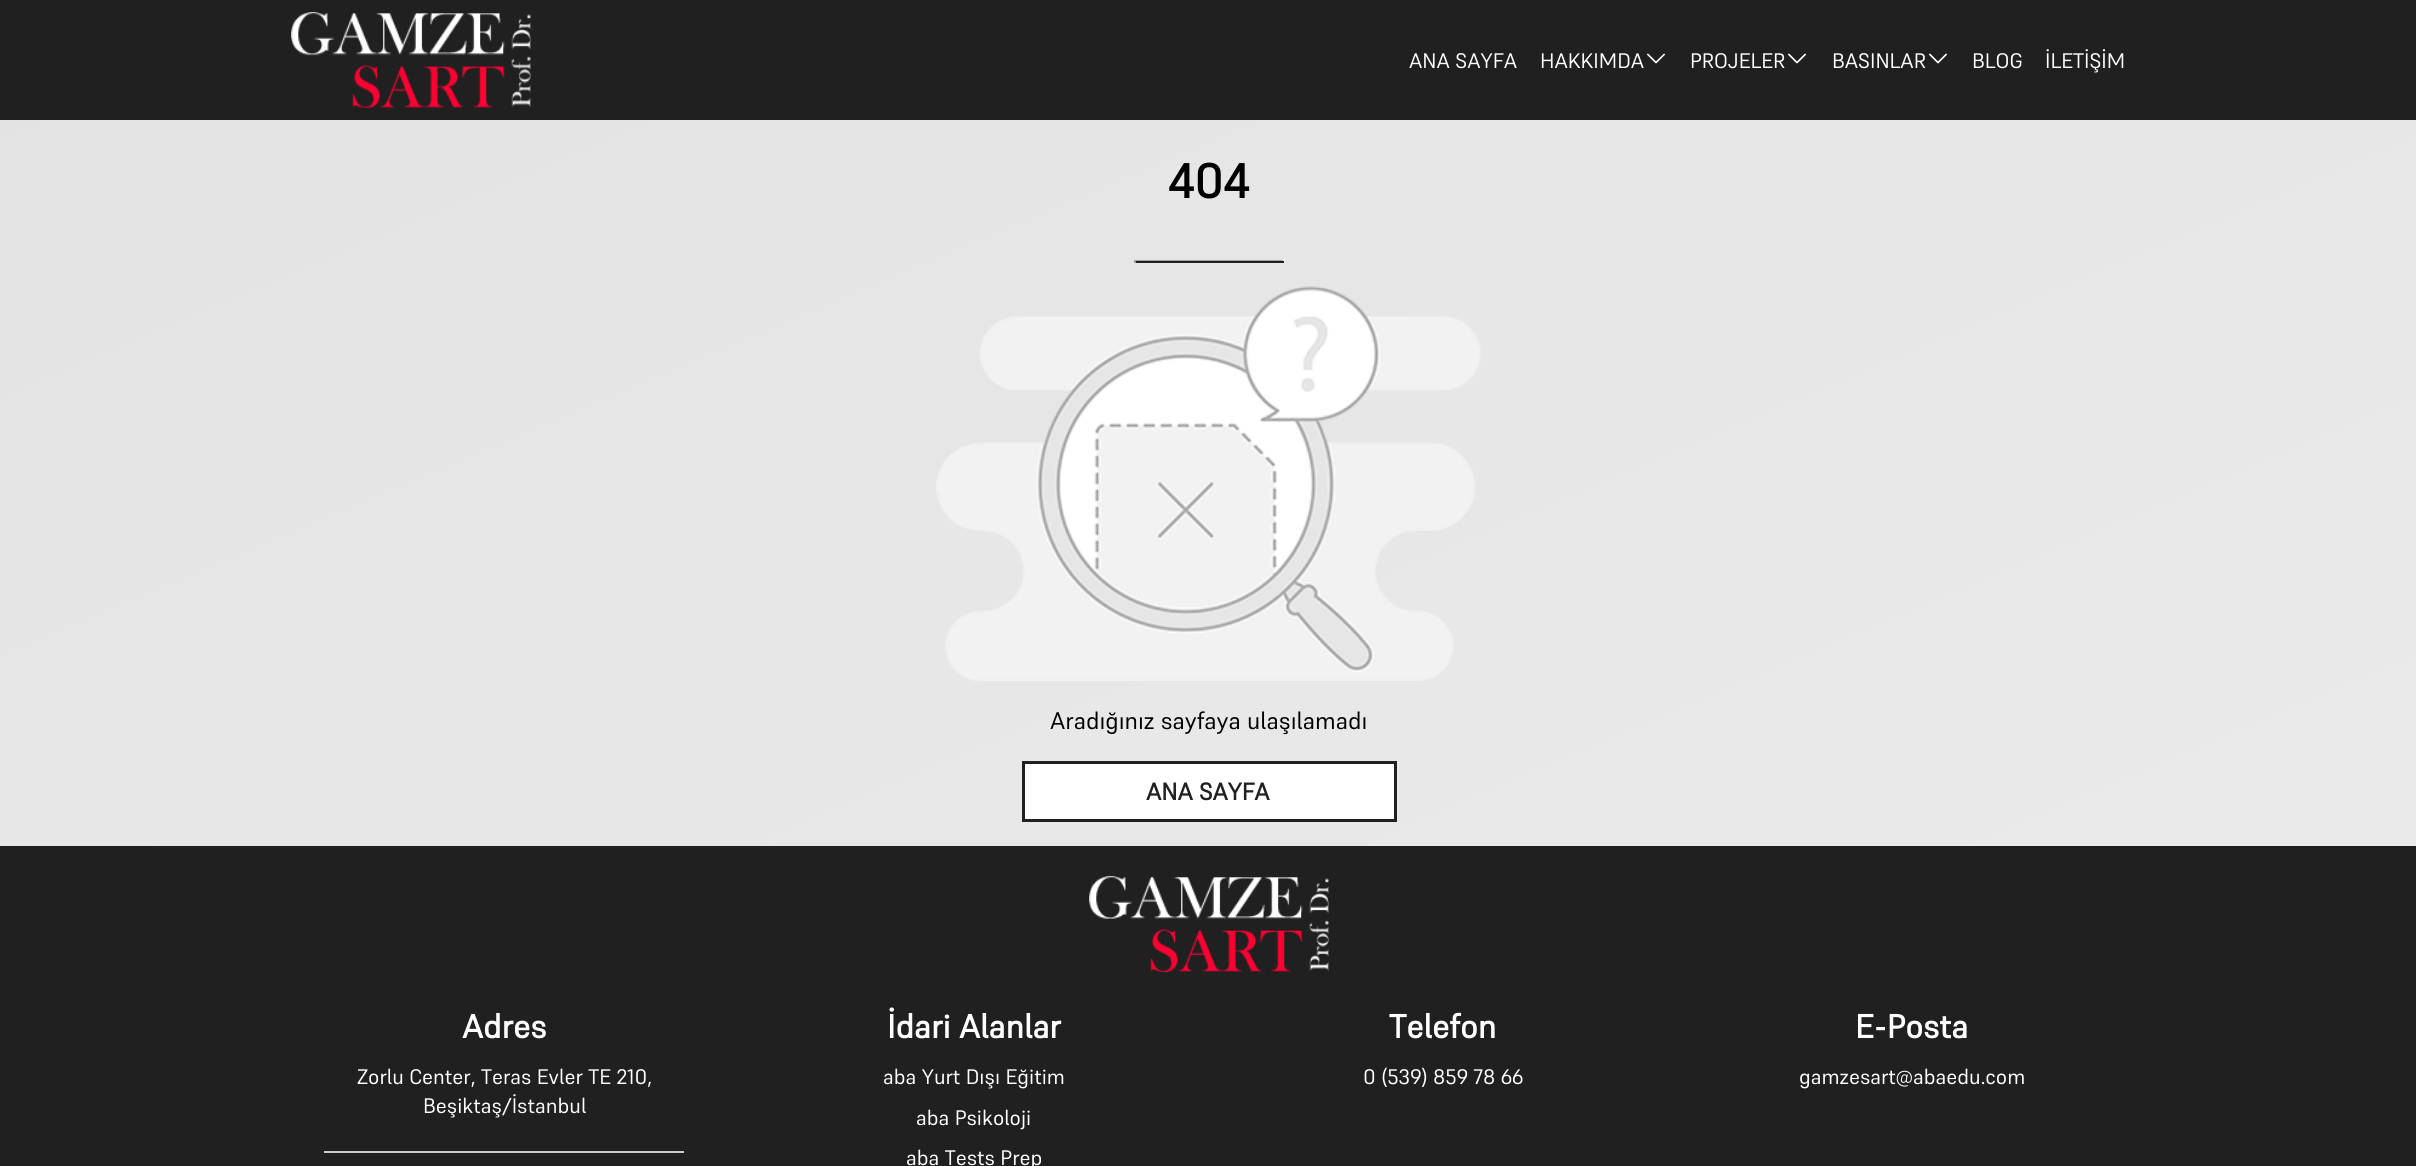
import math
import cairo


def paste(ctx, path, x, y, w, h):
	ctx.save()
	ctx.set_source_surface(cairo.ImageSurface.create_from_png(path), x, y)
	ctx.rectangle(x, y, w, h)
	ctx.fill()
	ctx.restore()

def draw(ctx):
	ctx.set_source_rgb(1, 1, 1)
	ctx.paint()
	gradient = cairo.LinearGradient(1667, 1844, 749, -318)
	gradient.add_color_stop_rgba(0, 0.929, 0.929, 0.929, 1)
	gradient.add_color_stop_rgba(1, 0.89, 0.89, 0.89, 1)
	ctx.set_source(gradient)
	ctx.rectangle(0, 120, 2416, 726)
	ctx.fill()
	ctx.set_source_rgb(0.125, 0.125, 0.125)
	ctx.rectangle(0, 0, 2416, 120)
	ctx.fill()
	paste(ctx, 'media/1.png', 291, 12, 240, 96)
	ctx.select_font_face('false')
	ctx.set_font_size(21)
	ctx.set_source_rgb(1, 1, 1)
	ctx.move_to(1409, 68)
	ctx.show_text('ANA SAYFA')
	ctx.move_to(1540, 68)
	ctx.show_text('HAKKIMDA')
	paste(ctx, 'media/2.png', 1647, 53, 18, 11)
	ctx.move_to(1690, 68)
	ctx.show_text('PROJELER')
	paste(ctx, 'media/2.png', 1788, 53, 18, 11)
	ctx.move_to(1832, 68)
	ctx.show_text('BASINLAR')
	paste(ctx, 'media/2.png', 1929, 53, 18, 11)
	ctx.move_to(1972, 68)
	ctx.show_text('BLOG')
	ctx.move_to(2045, 68)
	ctx.show_text('İLETİŞİM')
	ctx.select_font_face('false', cairo.FONT_SLANT_NORMAL, cairo.FONT_WEIGHT_BOLD)
	ctx.set_font_size(48)
	ctx.set_source_rgb(0, 0, 0)
	ctx.move_to(1168, 198)
	ctx.show_text('404')
	ctx.set_source_rgb(0.624, 0.624, 0.624)
	ctx.rectangle(1134, 260, 150, 1)
	ctx.fill()
	ctx.set_source_rgb(0.933, 0.933, 0.933)
	ctx.rectangle(1283, 260, 2, 3)
	ctx.fill()
	ctx.set_source_rgb(0.125, 0.125, 0.125)
	ctx.rectangle(1134, 261, 150, 2)
	ctx.fill()
	ctx.set_source_rgb(0.624, 0.624, 0.624)
	ctx.rectangle(1134, 260, 2, 3)
	ctx.fill()
	paste(ctx, 'media/3.png', 936, 286, 545, 395)
	ctx.select_font_face('false')
	ctx.set_font_size(24)
	ctx.set_source_rgb(0, 0, 0)
	ctx.move_to(1050, 729)
	ctx.show_text('Aradığınız sayfaya ulaşılamadı')
	ctx.set_source_rgb(1, 1, 1)
	ctx.rectangle(1023.5, 762.5, 372, 58)
	ctx.fill_preserve()
	ctx.set_source_rgb(0.125, 0.125, 0.125)
	ctx.set_line_width(3)
	ctx.stroke()
	ctx.select_font_face('false', cairo.FONT_SLANT_NORMAL, cairo.FONT_WEIGHT_BOLD)
	ctx.move_to(1146, 800)
	ctx.show_text('ANA SAYFA')
	ctx.rectangle(0, 846, 2416, 320)
	ctx.fill()
	paste(ctx, 'media/4.png', 1089, 876, 240, 96)
	ctx.set_font_size(33)
	ctx.set_source_rgb(1, 1, 1)
	ctx.move_to(462, 1038)
	ctx.show_text('Adres')
	ctx.select_font_face('false')
	ctx.set_font_size(21)
	ctx.move_to(357, 1084)
	ctx.show_text('Zorlu Center, Teras Evler TE 210,')
	ctx.move_to(423, 1113)
	ctx.show_text('Beşiktaş/İstanbul')
	ctx.set_source_rgb(0.8, 0.8, 0.8)
	ctx.rectangle(324, 1151, 360, 2)
	ctx.fill()
	ctx.select_font_face('false', cairo.FONT_SLANT_NORMAL, cairo.FONT_WEIGHT_BOLD)
	ctx.set_font_size(33)
	ctx.set_source_rgb(1, 1, 1)
	ctx.move_to(887, 1038)
	ctx.show_text('İdari Alanlar')
	ctx.select_font_face('false')
	ctx.set_font_size(21)
	for x, y, s in [
		(883, 1084, 'aba Yurt Dışı Eğitim'),
		(916, 1125, 'aba Psikoloji'),
		(906, 1165, 'aba Tests Prep'),
	]:
		ctx.move_to(x, y)
		ctx.show_text(s)
	ctx.select_font_face('false', cairo.FONT_SLANT_NORMAL, cairo.FONT_WEIGHT_BOLD)
	ctx.set_font_size(33)
	ctx.move_to(1389, 1038)
	ctx.show_text('Telefon')
	ctx.select_font_face('false')
	ctx.set_font_size(21)
	ctx.move_to(1363, 1084)
	ctx.show_text('0 (539) 859 78 66')
	ctx.select_font_face('false', cairo.FONT_SLANT_NORMAL, cairo.FONT_WEIGHT_BOLD)
	ctx.set_font_size(33)
	ctx.move_to(1855, 1038)
	ctx.show_text('E-Posta')
	ctx.select_font_face('false')
	ctx.set_font_size(21)
	ctx.move_to(1799, 1084)
	ctx.show_text('gamzesart@abaedu.com')


surface = cairo.ImageSurface(cairo.FORMAT_RGB24, 2416, 1166)
ctx = cairo.Context(surface)
options = cairo.FontOptions()
options.set_hint_metrics(cairo.HINT_METRICS_OFF)
options.set_hint_style(cairo.HINT_STYLE_NONE)
ctx.set_font_options(options)
ctx.set_miter_limit(4)
draw(ctx)
surface.write_to_png('image.png')
